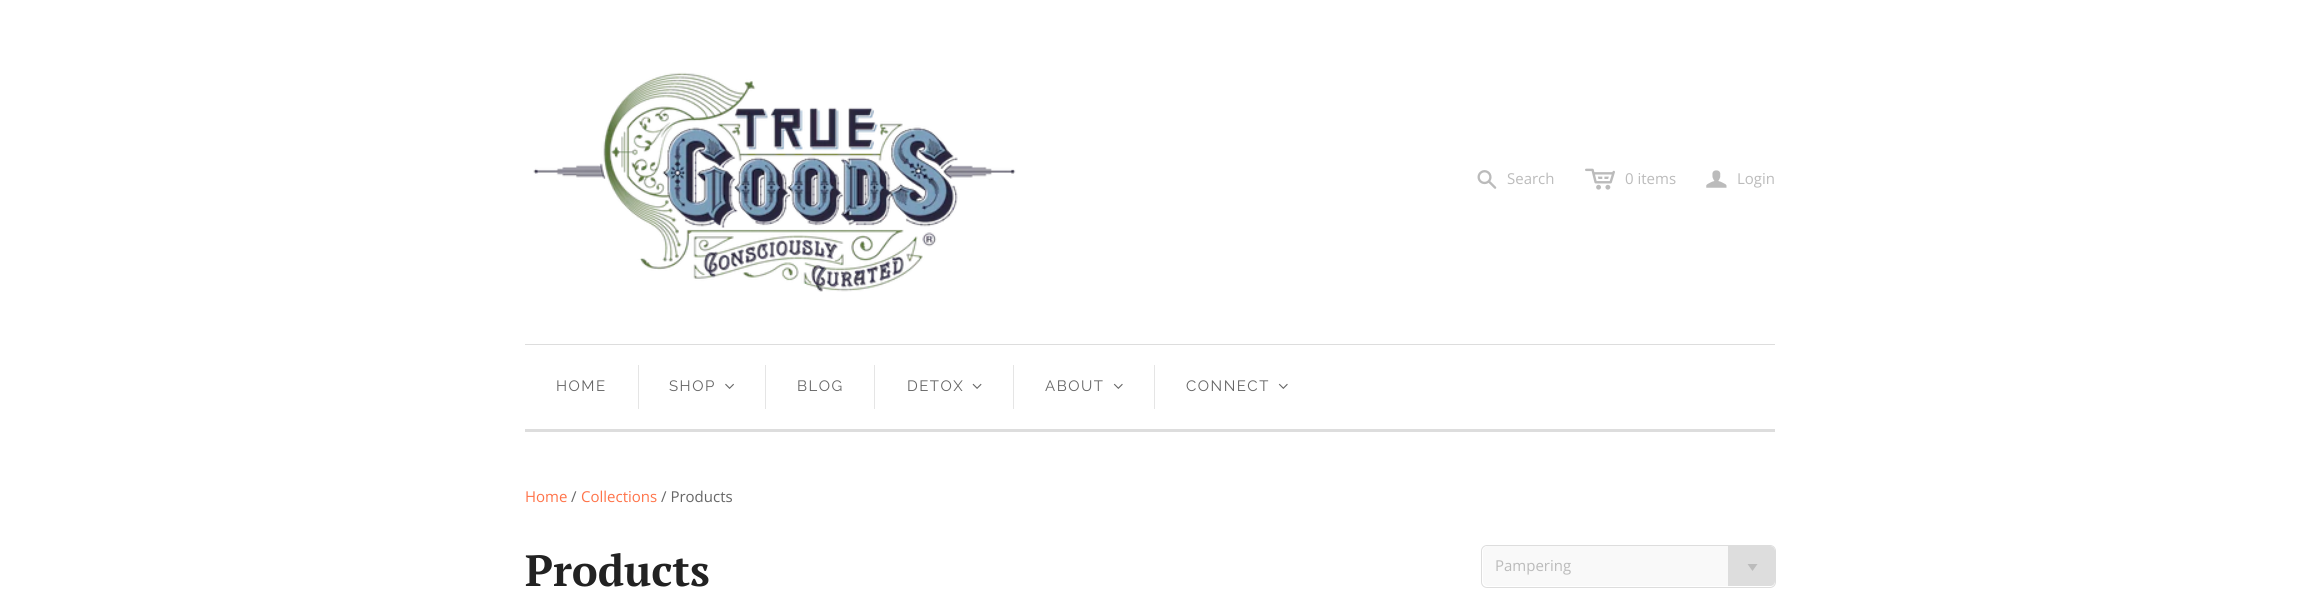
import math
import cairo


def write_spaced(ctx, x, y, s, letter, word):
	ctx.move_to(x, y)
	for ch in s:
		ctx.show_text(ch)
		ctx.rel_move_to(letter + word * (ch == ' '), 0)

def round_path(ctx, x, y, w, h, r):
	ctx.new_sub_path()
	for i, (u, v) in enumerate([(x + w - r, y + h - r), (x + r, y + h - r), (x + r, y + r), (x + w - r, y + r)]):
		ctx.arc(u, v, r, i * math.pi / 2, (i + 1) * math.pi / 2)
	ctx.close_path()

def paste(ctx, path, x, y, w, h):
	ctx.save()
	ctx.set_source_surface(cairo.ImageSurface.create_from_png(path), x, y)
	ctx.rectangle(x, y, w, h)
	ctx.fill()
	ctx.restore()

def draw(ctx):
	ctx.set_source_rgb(1, 1, 1)
	ctx.paint()
	paste(ctx, 'media/1.png', 533, 72, 483, 220)
	paste(ctx, 'media/2.png', 1477, 170, 20, 19)
	ctx.select_font_face('Open Sans')
	ctx.set_font_size(15)
	ctx.set_source_rgb(0.733, 0.733, 0.733)
	ctx.move_to(1507, 184)
	ctx.show_text('Search')
	paste(ctx, 'media/3.png', 1585, 168, 30, 22)
	ctx.move_to(1625, 184)
	ctx.show_text('0 items')
	paste(ctx, 'media/4.png', 1706, 170, 21, 18)
	ctx.move_to(1737, 184)
	ctx.show_text('Login')
	ctx.set_source_rgb(0.867, 0.867, 0.867)
	ctx.rectangle(525, 344, 1250, 1)
	ctx.fill()
	ctx.rectangle(525, 429, 1250, 3)
	ctx.fill()
	ctx.select_font_face('Raleway')
	ctx.set_source_rgb(0.4, 0.4, 0.4)
	write_spaced(ctx, 556, 391, 'HOME', 1.5, 0)
	ctx.set_source_rgb(0.898, 0.898, 0.898)
	ctx.rectangle(638, 365, 1, 44)
	ctx.fill()
	ctx.set_source_rgb(0.4, 0.4, 0.4)
	write_spaced(ctx, 669, 391, 'SHOP', 1.5, 0)
	paste(ctx, 'media/5.png', 725, 383, 9, 6)
	ctx.set_source_rgb(0.898, 0.898, 0.898)
	ctx.rectangle(765, 365, 1, 44)
	ctx.fill()
	ctx.set_source_rgb(0.4, 0.4, 0.4)
	write_spaced(ctx, 797, 391, 'BLOG', 1.5, 0)
	ctx.set_source_rgb(0.898, 0.898, 0.898)
	ctx.rectangle(874, 365, 1, 44)
	ctx.fill()
	ctx.set_source_rgb(0.4, 0.4, 0.4)
	write_spaced(ctx, 907, 391, 'DETOX', 1.5, 0)
	paste(ctx, 'media/6.png', 972, 383, 10, 6)
	ctx.set_source_rgb(0.898, 0.898, 0.898)
	ctx.rectangle(1013, 365, 1, 44)
	ctx.fill()
	ctx.set_source_rgb(0.4, 0.4, 0.4)
	write_spaced(ctx, 1045, 391, 'ABOUT', 1.5, 0)
	paste(ctx, 'media/7.png', 1113, 383, 10, 6)
	ctx.set_source_rgb(0.898, 0.898, 0.898)
	ctx.rectangle(1154, 365, 1, 44)
	ctx.fill()
	ctx.set_source_rgb(0.4, 0.4, 0.4)
	write_spaced(ctx, 1186, 391, 'CONNECT', 1.5, 0)
	paste(ctx, 'media/7.png', 1278, 383, 10, 6)
	ctx.select_font_face('Open Sans')
	ctx.set_source_rgb(1, 0.451, 0.286)
	ctx.move_to(525, 502)
	ctx.show_text('Home')
	ctx.set_source_rgb(0.4, 0.4, 0.4)
	ctx.move_to(571, 502)
	ctx.show_text('/')
	ctx.set_source_rgb(1, 0.451, 0.286)
	ctx.move_to(581, 502)
	ctx.show_text('Collections')
	ctx.set_source_rgb(0.4, 0.4, 0.4)
	ctx.move_to(661, 502)
	ctx.show_text('/ Products')
	ctx.select_font_face('PT Serif', cairo.FONT_SLANT_NORMAL, cairo.FONT_WEIGHT_BOLD)
	ctx.set_font_size(43.75)
	ctx.set_source_rgb(0.133, 0.133, 0.133)
	ctx.move_to(525, 586)
	ctx.show_text('Products')
	round_path(ctx, 1481.5, 545.5, 294, 42, 5.5)
	ctx.set_source_rgb(0.867, 0.867, 0.867)
	ctx.set_line_width(1)
	ctx.stroke()
	ctx.set_source_rgb(0.976, 0.976, 0.976)
	round_path(ctx, 1483, 546, 292, 40, 5)
	ctx.fill()
	ctx.select_font_face('Open Sans')
	ctx.set_font_size(15)
	ctx.set_source_rgb(0.733, 0.733, 0.733)
	ctx.move_to(1495, 571)
	ctx.show_text('Pampering')
	ctx.set_source_rgb(0.867, 0.867, 0.867)
	ctx.new_path()
	ctx.move_to(1728, 546)
	ctx.line_to(1770, 546)
	ctx.curve_to(1773, 546, 1775, 548, 1775, 551)
	ctx.line_to(1775, 581)
	ctx.curve_to(1775, 584, 1773, 586, 1770, 586)
	ctx.line_to(1728, 586)
	ctx.close_path()
	ctx.fill()
	ctx.set_source_rgb(0.733, 0.733, 0.733)
	ctx.new_path()
	ctx.move_to(1747.5, 564)
	ctx.line_to(1757.5, 564)
	ctx.line_to(1752.5, 571)
	ctx.close_path()
	ctx.fill()


surface = cairo.ImageSurface(cairo.FORMAT_RGB24, 2299, 609)
ctx = cairo.Context(surface)
options = cairo.FontOptions()
options.set_hint_metrics(cairo.HINT_METRICS_OFF)
options.set_hint_style(cairo.HINT_STYLE_NONE)
ctx.set_font_options(options)
ctx.set_miter_limit(4)
draw(ctx)
surface.write_to_png('image.png')
